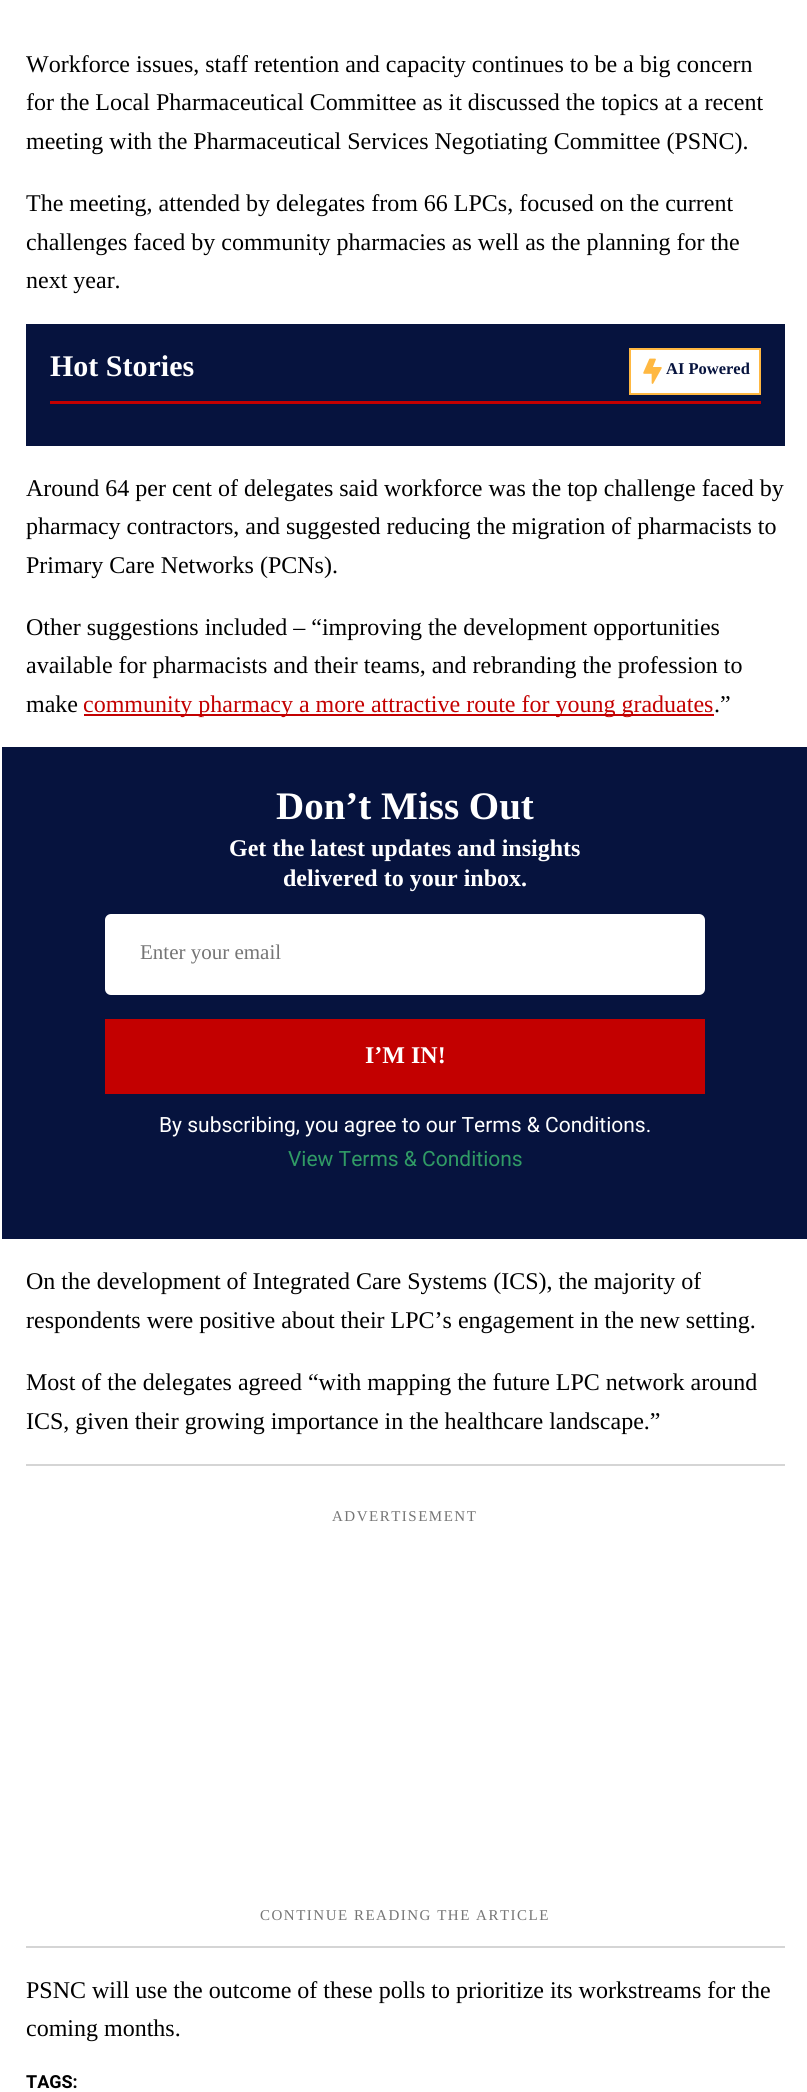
import math
import cairo


def write_spaced(ctx, x, y, s, letter, word):
	ctx.move_to(x, y)
	for ch in s:
		ctx.show_text(ch)
		ctx.rel_move_to(letter + word * (ch == ' '), 0)

def round_path(ctx, x, y, w, h, r):
	ctx.new_sub_path()
	for i, (u, v) in enumerate([(x + w - r, y + h - r), (x + r, y + h - r), (x + r, y + r), (x + w - r, y + r)]):
		ctx.arc(u, v, r, i * math.pi / 2, (i + 1) * math.pi / 2)
	ctx.close_path()

def paste(ctx, path, x, y, w, h):
	ctx.save()
	ctx.set_source_surface(cairo.ImageSurface.create_from_png(path), x, y)
	ctx.rectangle(x, y, w, h)
	ctx.fill()
	ctx.restore()

def draw(ctx):
	ctx.set_source_rgb(1, 1, 1)
	ctx.paint()
	ctx.select_font_face('Liberation Serif')
	ctx.set_font_size(24)
	ctx.set_source_rgb(0, 0, 0)
	for x, y, s in [
		(26, 72, 'Workforce issues, staff retention and capacity continues to be a big concern'),
		(26, 110, 'for the Local Pharmaceutical Committee as it discussed the topics at a recent'),
		(26, 149, 'meeting with the Pharmaceutical Services Negotiating Committee (PSNC).'),
		(26, 211, 'The meeting, attended by delegates from 66 LPCs, focused on the current'),
		(26, 250, 'challenges faced by community pharmacies as well as the planning for the'),
		(26, 288, 'next year.'),
	]:
		ctx.move_to(x, y)
		ctx.show_text(s)
	ctx.set_source_rgb(0.027, 0.078, 0.243)
	ctx.rectangle(26, 324, 759, 122)
	ctx.fill()
	ctx.set_source_rgb(0.765, 0, 0)
	ctx.rectangle(50, 401, 711, 3)
	ctx.fill()
	ctx.select_font_face('Liberation Serif', cairo.FONT_SLANT_NORMAL, cairo.FONT_WEIGHT_BOLD)
	ctx.set_font_size(30)
	ctx.set_source_rgb(1, 1, 1)
	ctx.move_to(50, 376)
	ctx.show_text('Hot Stories')
	ctx.rectangle(630, 349, 130, 45)
	ctx.fill_preserve()
	ctx.set_source_rgb(1, 0.722, 0.255)
	ctx.stroke()
	paste(ctx, 'media/1.png', 643, 358, 19, 26)
	ctx.set_font_size(16.5)
	ctx.set_source_rgb(0.027, 0.078, 0.243)
	ctx.move_to(666, 374)
	ctx.show_text('AI Powered')
	ctx.select_font_face('Liberation Serif')
	ctx.set_font_size(24)
	ctx.set_source_rgb(0, 0, 0)
	for x, y, s in [
		(26, 496, 'Around 64 per cent of delegates said workforce was the top challenge faced by'),
		(26, 534, 'pharmacy contractors, and suggested reducing the migration of pharmacists to'),
		(26, 573, 'Primary Care Networks (PCNs).'),
		(26, 635, 'Other suggestions included – “improving the development opportunities'),
		(26, 673, 'available for pharmacists and their teams, and rebranding the profession to'),
		(26, 712, 'make'),
	]:
		ctx.move_to(x, y)
		ctx.show_text(s)
	ctx.set_source_rgb(0.765, 0, 0)
	ctx.rectangle(84, 714, 630, 2)
	ctx.fill()
	ctx.move_to(83, 712)
	ctx.show_text('community pharmacy a more attractive route for young graduates')
	ctx.set_source_rgb(0, 0, 0)
	ctx.move_to(714, 712)
	ctx.show_text('.”')
	ctx.set_source_rgb(0.027, 0.078, 0.243)
	ctx.rectangle(2, 747, 805, 492)
	ctx.fill()
	ctx.select_font_face('Liberation Serif', cairo.FONT_SLANT_NORMAL, cairo.FONT_WEIGHT_BOLD)
	ctx.set_font_size(39)
	ctx.set_source_rgb(1, 1, 1)
	ctx.move_to(276, 819)
	ctx.show_text('Don’t Miss Out')
	ctx.set_font_size(24)
	ctx.move_to(229, 856)
	ctx.show_text('Get the latest updates and insights')
	ctx.move_to(283, 886)
	ctx.show_text('delivered to your inbox.')
	round_path(ctx, 105, 914, 600, 81, 6)
	ctx.fill()
	ctx.select_font_face('Liberation Serif')
	ctx.set_font_size(21)
	ctx.set_source_rgb(0.459, 0.459, 0.459)
	ctx.move_to(140, 959)
	ctx.show_text('Enter your email')
	ctx.set_source_rgb(0.765, 0, 0)
	ctx.rectangle(105, 1019, 600, 75)
	ctx.fill()
	ctx.select_font_face('Liberation Serif', cairo.FONT_SLANT_NORMAL, cairo.FONT_WEIGHT_BOLD)
	ctx.set_font_size(24)
	ctx.set_source_rgb(1, 1, 1)
	ctx.move_to(365, 1063)
	ctx.show_text('I’M IN!')
	ctx.select_font_face('Roboto')
	ctx.set_font_size(21)
	ctx.move_to(159, 1132)
	ctx.show_text('By subscribing, you agree to our Terms & Conditions.')
	ctx.set_source_rgb(0.188, 0.608, 0.396)
	ctx.move_to(288, 1166)
	ctx.show_text('View Terms & Conditions')
	ctx.select_font_face('Liberation Serif')
	ctx.set_font_size(24)
	ctx.set_source_rgb(0, 0, 0)
	for x, y, s in [
		(26, 1289, 'On the development of Integrated Care Systems (ICS), the majority of'),
		(26, 1328, 'respondents were positive about their LPC’s engagement in the new setting.'),
		(26, 1390, 'Most of the delegates agreed “with mapping the future LPC network around'),
		(26, 1429, 'ICS, given their growing importance in the healthcare landscape.”'),
	]:
		ctx.move_to(x, y)
		ctx.show_text(s)
	ctx.set_source_rgb(0.835, 0.835, 0.835)
	ctx.rectangle(26, 1464, 759, 2)
	ctx.fill()
	ctx.rectangle(26, 1946, 759, 2)
	ctx.fill()
	ctx.set_font_size(15)
	ctx.set_source_rgb(0.459, 0.459, 0.459)
	write_spaced(ctx, 332, 1521, 'ADVERTISEMENT', 1.5, 0)
	write_spaced(ctx, 260, 1920, 'CONTINUE READING THE ARTICLE', 1.5, 0)
	ctx.set_font_size(24)
	ctx.set_source_rgb(0, 0, 0)
	ctx.move_to(26, 1998)
	ctx.show_text('PSNC will use the outcome of these polls to prioritize its workstreams for the')
	ctx.move_to(26, 2036)
	ctx.show_text('coming months.')
	ctx.select_font_face('Roboto', cairo.FONT_SLANT_NORMAL, cairo.FONT_WEIGHT_BOLD)
	ctx.set_font_size(18)
	ctx.move_to(26, 2088)
	ctx.show_text('TAGS:')


surface = cairo.ImageSurface(cairo.FORMAT_RGB24, 807, 2092)
ctx = cairo.Context(surface)
options = cairo.FontOptions()
options.set_hint_metrics(cairo.HINT_METRICS_OFF)
options.set_hint_style(cairo.HINT_STYLE_NONE)
ctx.set_font_options(options)
ctx.set_miter_limit(4)
draw(ctx)
surface.write_to_png('image.png')
